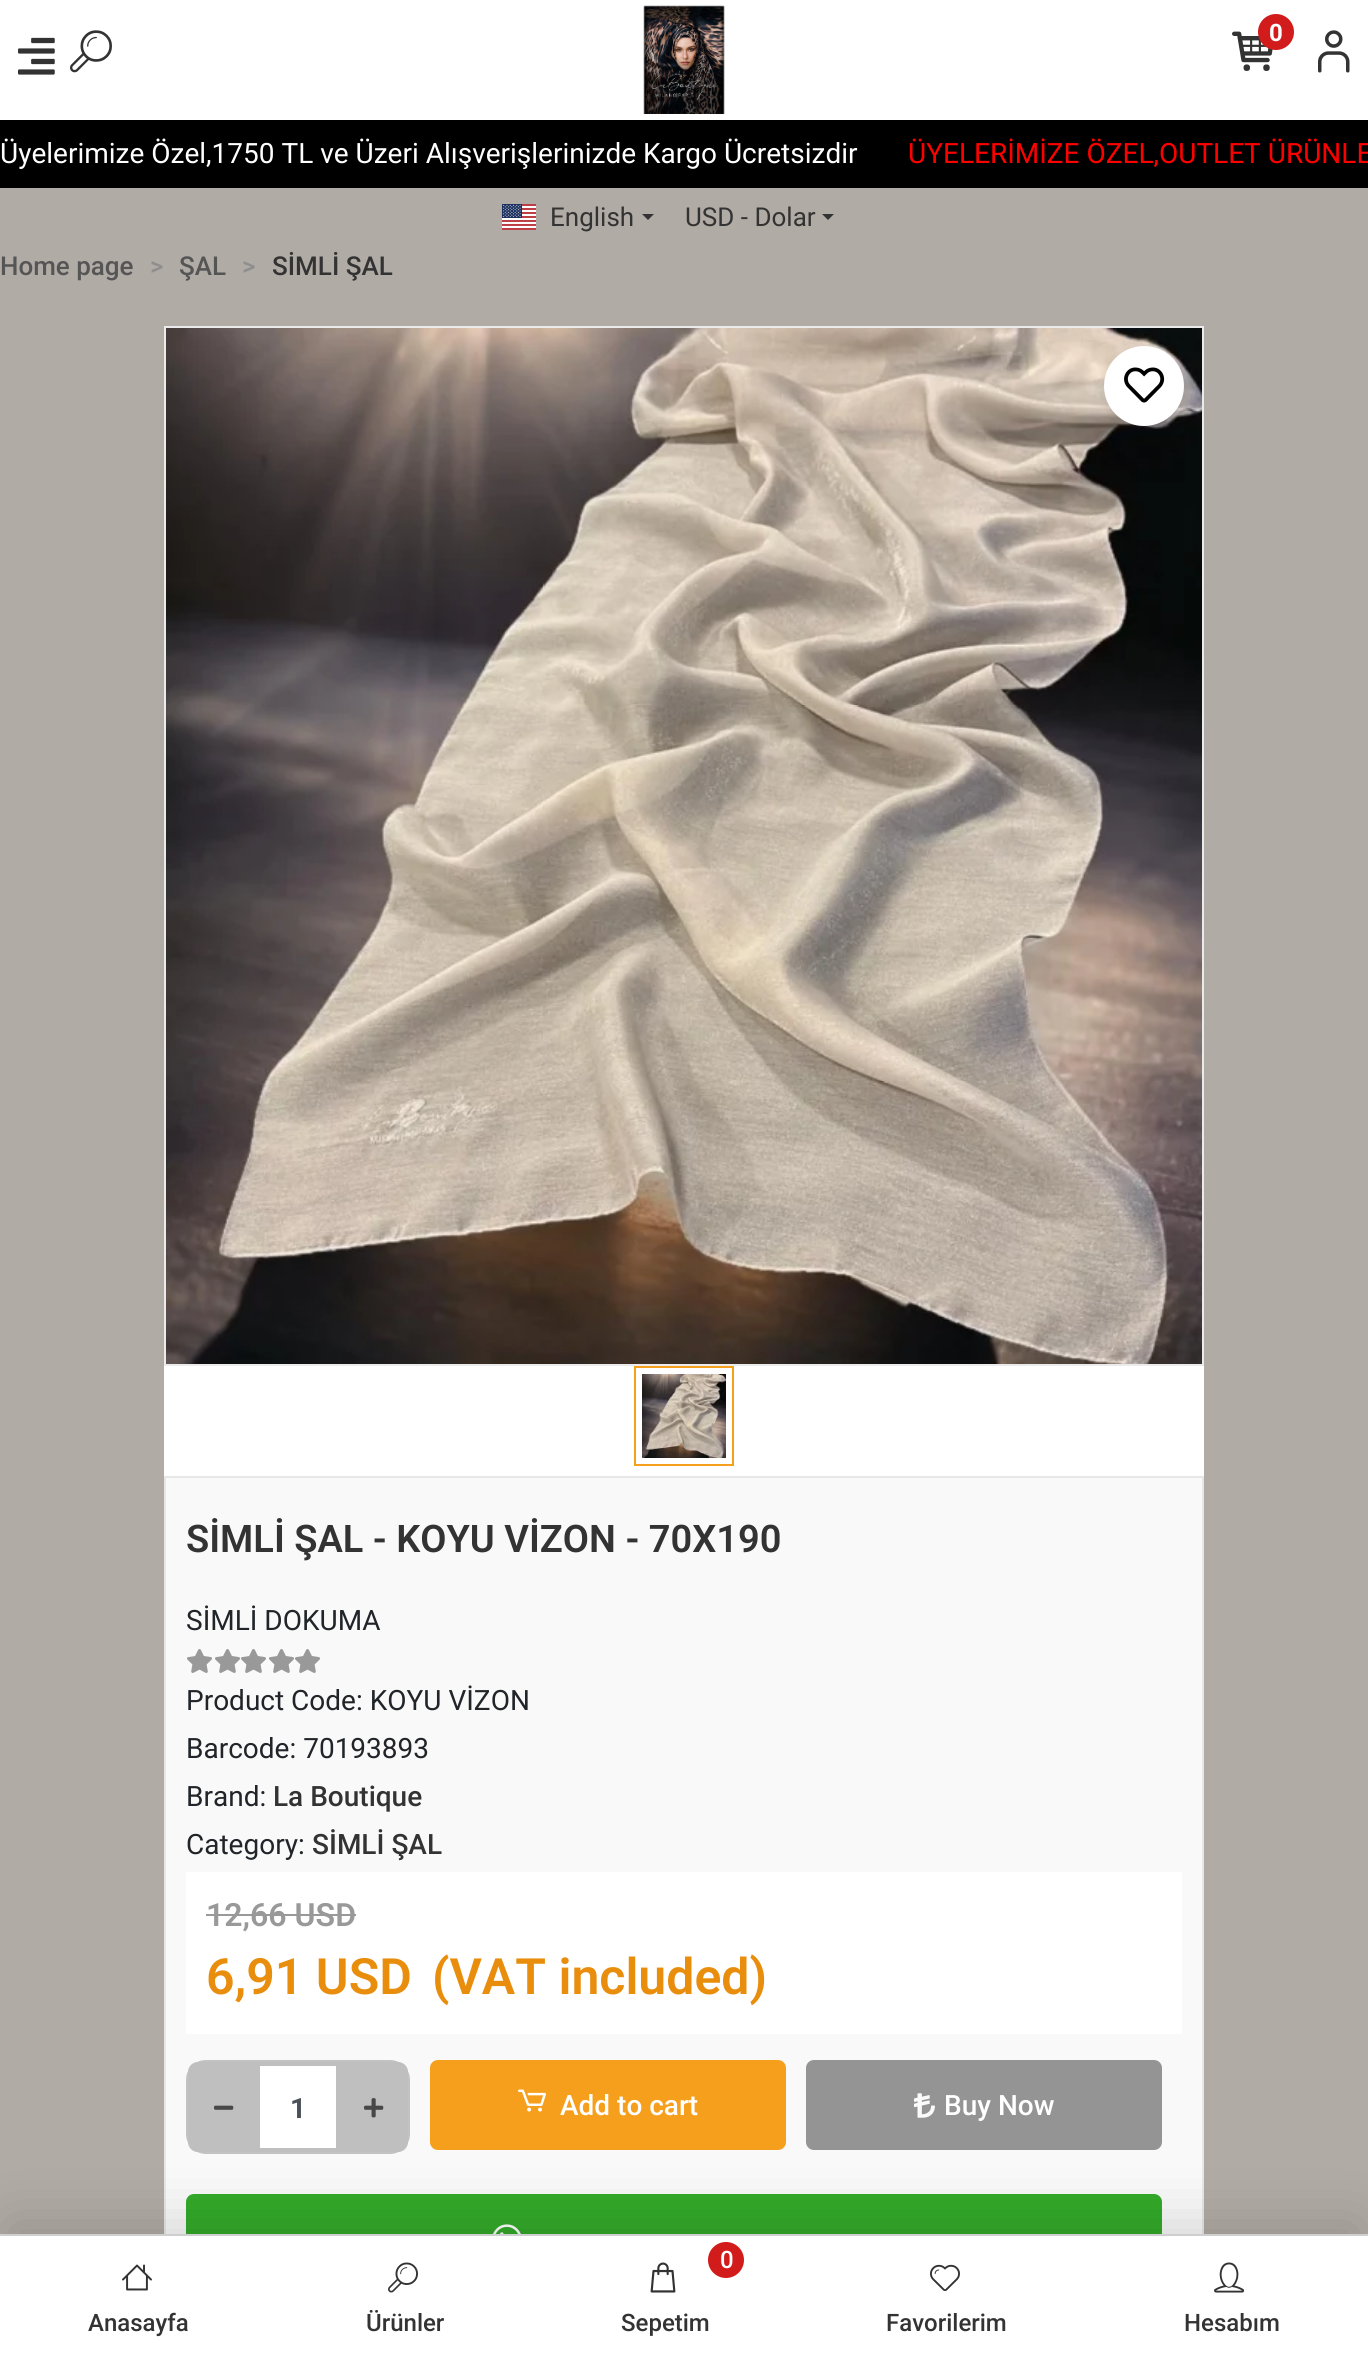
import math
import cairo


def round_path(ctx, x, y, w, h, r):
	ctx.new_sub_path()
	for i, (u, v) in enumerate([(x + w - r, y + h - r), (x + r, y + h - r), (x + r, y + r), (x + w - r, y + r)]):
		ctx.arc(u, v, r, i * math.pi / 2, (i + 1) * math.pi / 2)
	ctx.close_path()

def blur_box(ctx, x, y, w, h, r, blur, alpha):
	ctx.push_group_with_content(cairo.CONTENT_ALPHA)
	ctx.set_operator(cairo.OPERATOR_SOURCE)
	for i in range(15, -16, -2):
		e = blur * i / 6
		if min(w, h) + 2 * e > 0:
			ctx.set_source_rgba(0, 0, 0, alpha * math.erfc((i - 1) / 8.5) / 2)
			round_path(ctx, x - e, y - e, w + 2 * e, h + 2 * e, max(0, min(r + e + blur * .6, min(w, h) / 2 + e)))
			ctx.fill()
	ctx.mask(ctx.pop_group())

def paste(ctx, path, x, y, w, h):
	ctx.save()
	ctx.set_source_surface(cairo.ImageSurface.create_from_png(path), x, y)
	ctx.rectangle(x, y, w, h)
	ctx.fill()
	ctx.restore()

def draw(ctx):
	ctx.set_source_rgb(0.694, 0.671, 0.647)
	ctx.paint()
	ctx.set_source_rgb(1, 1, 1)
	ctx.rectangle(0, 0, 1368, 120)
	ctx.fill()
	paste(ctx, 'media/1.png', 18, 37, 37, 38)
	paste(ctx, 'media/2.png', 70, 30, 42, 43)
	paste(ctx, 'media/3.png', 643, 5, 82, 109)
	paste(ctx, 'media/4.png', 1232, 31, 41, 40)
	ctx.set_source_rgb(0.824, 0.11, 0.11)
	ctx.arc(1276, 32, 18, 0, 2 * math.pi)
	ctx.fill()
	ctx.select_font_face('Roboto', cairo.FONT_SLANT_NORMAL, cairo.FONT_WEIGHT_BOLD)
	ctx.set_font_size(24)
	ctx.set_source_rgb(1, 1, 1)
	ctx.move_to(1269, 41)
	ctx.show_text('0')
	paste(ctx, 'media/5.png', 1318, 30, 32, 43)
	paste(ctx, 'media/6.png', 502, 204, 34, 26)
	ctx.select_font_face('Roboto')
	ctx.set_font_size(26)
	ctx.set_source_rgb(0.2, 0.2, 0.2)
	ctx.move_to(550, 226)
	ctx.show_text('English')
	ctx.new_path()
	ctx.move_to(642, 214)
	ctx.line_to(654, 214)
	ctx.line_to(648, 220)
	ctx.close_path()
	ctx.fill()
	ctx.move_to(685, 226)
	ctx.show_text('USD - Dolar')
	ctx.new_path()
	ctx.move_to(822, 214)
	ctx.line_to(834, 214)
	ctx.line_to(828, 220)
	ctx.close_path()
	ctx.fill()
	ctx.set_source_rgb(0, 0, 0)
	ctx.rectangle(0, 120, 1368, 68)
	ctx.fill()
	ctx.set_font_size(28)
	ctx.set_source_rgb(1, 1, 1)
	ctx.move_to(0, 163)
	ctx.show_text('Üyelerimize Özel,1750 TL ve Üzeri Alışverişlerinizde Kargo Ücretsizdir')
	ctx.set_source_rgb(1, 0, 0)
	ctx.move_to(908, 163)
	ctx.show_text('ÜYELERİMİZE ÖZEL,OUTLET ÜRÜNLE')
	ctx.select_font_face('Roboto Medium')
	ctx.set_font_size(26)
	ctx.set_source_rgb(0.333, 0.333, 0.333)
	ctx.move_to(0, 275)
	ctx.show_text('Home page')
	ctx.set_source_rgb(0.557, 0.557, 0.557)
	ctx.move_to(150, 275)
	ctx.show_text('>')
	ctx.set_source_rgb(0.333, 0.333, 0.333)
	ctx.move_to(179, 275)
	ctx.show_text('ŞAL')
	ctx.set_source_rgb(0.557, 0.557, 0.557)
	ctx.move_to(242, 275)
	ctx.show_text('>')
	ctx.set_source_rgb(0.2, 0.2, 0.2)
	ctx.move_to(272, 275)
	ctx.show_text('SİMLİ ŞAL')
	ctx.set_source_rgb(1, 1, 1)
	ctx.rectangle(164, 1366, 1040, 110)
	ctx.fill()
	ctx.rectangle(165, 327, 1038, 1038)
	ctx.set_source_rgb(0.918, 0.918, 0.918)
	ctx.stroke()
	paste(ctx, 'media/7.png', 166, 328, 1036, 1036)
	ctx.set_source_rgb(0.251, 0.282, 0.306)
	blur_box(ctx, 1102, 348, 80, 80, 40, 4, 0.13)
	ctx.set_source_rgb(1, 1, 1)
	ctx.arc(1144, 386, 40, 0, 2 * math.pi)
	ctx.fill()
	paste(ctx, 'media/8.png', 1124, 367, 41, 36)
	ctx.rectangle(635, 1367, 98, 98)
	ctx.set_source_rgb(0.961, 0.624, 0.11)
	ctx.stroke()
	paste(ctx, 'media/9.png', 642, 1374, 84, 84)
	ctx.set_source_rgb(0.973, 0.973, 0.973)
	ctx.rectangle(166, 1478, 1036, 756)
	ctx.fill()
	ctx.rectangle(165, 1477, 1038, 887)
	ctx.set_source_rgb(0.906, 0.906, 0.906)
	ctx.stroke()
	ctx.select_font_face('Roboto SemiBold')
	ctx.set_font_size(38)
	ctx.set_source_rgb(0.2, 0.2, 0.2)
	ctx.move_to(186, 1552)
	ctx.show_text('SİMLİ ŞAL - KOYU VİZON - 70X190')
	ctx.select_font_face('Roboto')
	ctx.set_font_size(28)
	ctx.set_source_rgb(0.129, 0.145, 0.161)
	ctx.move_to(186, 1630)
	ctx.show_text('SİMLİ DOKUMA')
	paste(ctx, 'media/10.png', 187, 1649, 25, 24)
	paste(ctx, 'media/10.png', 215, 1649, 25, 24)
	paste(ctx, 'media/10.png', 241, 1649, 25, 24)
	paste(ctx, 'media/10.png', 269, 1649, 25, 24)
	paste(ctx, 'media/10.png', 295, 1649, 25, 24)
	for x, y, s in [
		(186, 1710, 'Product Code: KOYU VİZON'),
		(186, 1758, 'Barcode: 70193893'),
		(186, 1806, 'Brand:'),
	]:
		ctx.move_to(x, y)
		ctx.show_text(s)
	ctx.select_font_face('Roboto Medium')
	ctx.set_source_rgb(0.2, 0.2, 0.2)
	ctx.move_to(273, 1806)
	ctx.show_text('La Boutique')
	ctx.select_font_face('Roboto')
	ctx.set_source_rgb(0.129, 0.145, 0.161)
	ctx.move_to(186, 1854)
	ctx.show_text('Category:')
	ctx.select_font_face('Roboto Medium')
	ctx.set_source_rgb(0.2, 0.2, 0.2)
	ctx.move_to(312, 1854)
	ctx.show_text('SİMLİ ŞAL')
	ctx.set_source_rgb(1, 1, 1)
	ctx.rectangle(186, 1872, 996, 162)
	ctx.fill()
	ctx.select_font_face('Roboto SemiBold')
	ctx.set_font_size(32)
	ctx.set_source_rgb(0.6, 0.6, 0.6)
	ctx.move_to(206, 1926)
	ctx.show_text('12,66 USD')
	ctx.rectangle(206, 1914, 150, 2)
	ctx.fill()
	ctx.set_font_size(50)
	ctx.set_source_rgb(0.914, 0.553, 0.051)
	ctx.move_to(206, 1994)
	ctx.show_text('6,91 USD')
	ctx.move_to(432, 1994)
	ctx.show_text('(VAT included)')
	round_path(ctx, 187, 2061, 222, 92, 19)
	ctx.set_source_rgb(0.761, 0.761, 0.761)
	ctx.stroke()
	ctx.set_source_rgb(0.749, 0.749, 0.749)
	ctx.new_path()
	ctx.move_to(198, 2062)
	ctx.line_to(258, 2062)
	ctx.line_to(258, 2152)
	ctx.line_to(198, 2152)
	ctx.curve_to(192.5, 2152, 188, 2147.5, 188, 2142)
	ctx.line_to(188, 2072)
	ctx.curve_to(188, 2066.5, 192.5, 2062, 198, 2062)
	ctx.close_path()
	ctx.fill()
	paste(ctx, 'media/11.png', 214, 2105, 20, 5)
	ctx.set_source_rgb(1, 1, 1)
	ctx.rectangle(260, 2066, 76, 82)
	ctx.fill()
	ctx.set_source_rgb(0.749, 0.749, 0.749)
	ctx.rectangle(258, 2062, 80, 4)
	ctx.rectangle(336, 2062, 2, 90)
	ctx.rectangle(258, 2148, 80, 4)
	ctx.rectangle(258, 2062, 2, 90)
	ctx.fill()
	ctx.select_font_face('Roboto', cairo.FONT_SLANT_NORMAL, cairo.FONT_WEIGHT_BOLD)
	ctx.set_font_size(28)
	ctx.set_source_rgb(0.286, 0.314, 0.341)
	ctx.move_to(290, 2118)
	ctx.show_text('1')
	ctx.set_source_rgb(0.749, 0.749, 0.749)
	ctx.new_path()
	ctx.move_to(338, 2062)
	ctx.line_to(398, 2062)
	ctx.curve_to(403.5, 2062, 408, 2066.5, 408, 2072)
	ctx.line_to(408, 2142)
	ctx.curve_to(408, 2147.5, 403.5, 2152, 398, 2152)
	ctx.line_to(338, 2152)
	ctx.close_path()
	ctx.fill()
	paste(ctx, 'media/12.png', 364, 2098, 20, 20)
	ctx.set_source_rgb(0.961, 0.624, 0.11)
	round_path(ctx, 431, 2061, 354, 88, 7)
	ctx.fill_preserve()
	ctx.stroke()
	paste(ctx, 'media/13.png', 518, 2089, 28, 23)
	ctx.select_font_face('Roboto Medium')
	ctx.set_source_rgb(1, 1, 1)
	ctx.move_to(560, 2115)
	ctx.show_text('Add to cart')
	ctx.set_source_rgb(0.58, 0.58, 0.58)
	round_path(ctx, 807, 2061, 354, 88, 7)
	ctx.fill_preserve()
	ctx.stroke()
	paste(ctx, 'media/14.png', 914, 2093, 21, 25)
	ctx.set_source_rgb(1, 1, 1)
	ctx.move_to(944, 2115)
	ctx.show_text('Buy Now')
	ctx.set_source_rgb(0.2, 0.667, 0.161)
	round_path(ctx, 187, 2195, 974, 88, 7)
	ctx.fill_preserve()
	ctx.stroke()
	paste(ctx, 'media/15.png', 493, 2224, 28, 10)
	ctx.set_source_rgb(0, 0, 0)
	blur_box(ctx, 10, 2224, 1348, 110, 0, 30, 0.15)
	ctx.set_source_rgb(1, 1, 1)
	ctx.rectangle(0, 2236, 1368, 127)
	ctx.fill()
	ctx.set_source_rgb(0.812, 0.812, 0.812)
	ctx.rectangle(0, 2234, 1368, 2)
	ctx.fill()
	paste(ctx, 'media/16.png', 122, 2264, 30, 27)
	ctx.set_font_size(24)
	ctx.set_source_rgb(0.2, 0.2, 0.2)
	ctx.move_to(88, 2331)
	ctx.show_text('Anasayfa')
	paste(ctx, 'media/17.png', 388, 2262, 30, 31)
	ctx.move_to(366, 2331)
	ctx.show_text('Ürünler')
	ctx.set_source_rgb(0.824, 0.11, 0.11)
	ctx.new_path()
	ctx.arc(726, 2260, 18, 0, 2 * math.pi)
	ctx.fill()
	ctx.set_source_rgb(1, 1, 1)
	ctx.move_to(720, 2268)
	ctx.show_text('0')
	paste(ctx, 'media/18.png', 650, 2262, 26, 31)
	ctx.set_source_rgb(0.2, 0.2, 0.2)
	ctx.move_to(621, 2331)
	ctx.show_text('Sepetim')
	paste(ctx, 'media/19.png', 930, 2264, 30, 27)
	ctx.move_to(886, 2331)
	ctx.show_text('Favorilerim')
	paste(ctx, 'media/20.png', 1214, 2262, 31, 31)
	ctx.move_to(1184, 2331)
	ctx.show_text('Hesabım')


surface = cairo.ImageSurface(cairo.FORMAT_RGB24, 1368, 2363)
ctx = cairo.Context(surface)
options = cairo.FontOptions()
options.set_hint_metrics(cairo.HINT_METRICS_OFF)
options.set_hint_style(cairo.HINT_STYLE_NONE)
ctx.set_font_options(options)
ctx.set_miter_limit(4)
draw(ctx)
surface.write_to_png('image.png')
